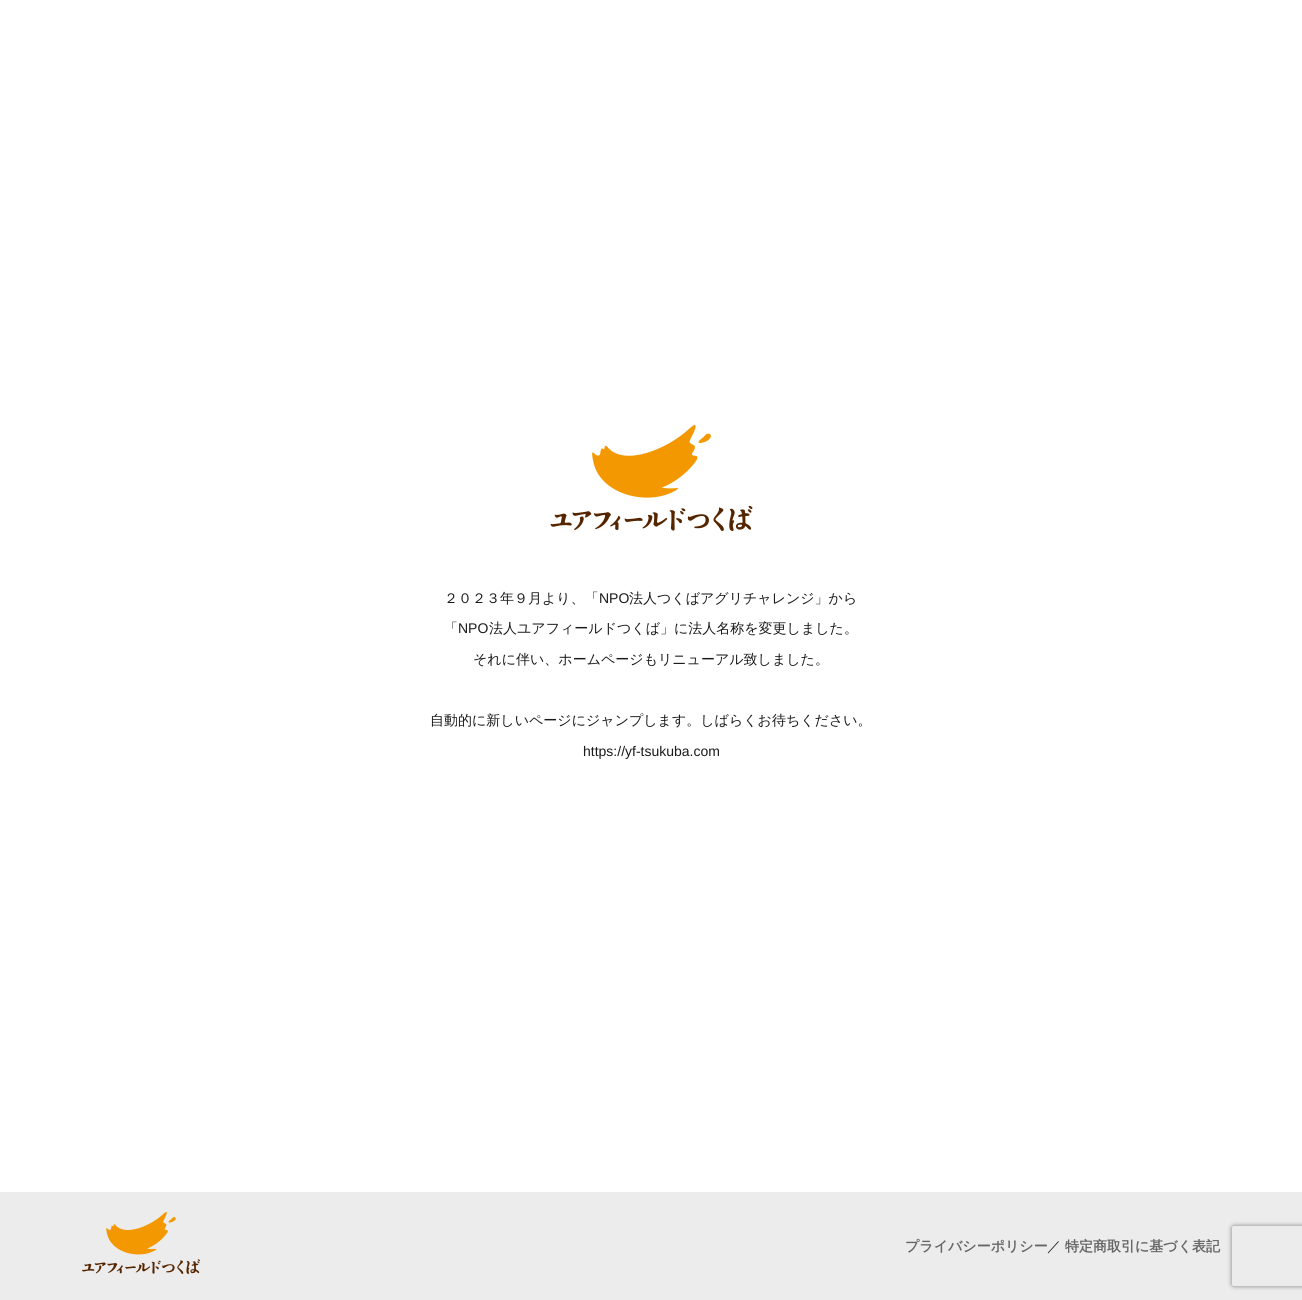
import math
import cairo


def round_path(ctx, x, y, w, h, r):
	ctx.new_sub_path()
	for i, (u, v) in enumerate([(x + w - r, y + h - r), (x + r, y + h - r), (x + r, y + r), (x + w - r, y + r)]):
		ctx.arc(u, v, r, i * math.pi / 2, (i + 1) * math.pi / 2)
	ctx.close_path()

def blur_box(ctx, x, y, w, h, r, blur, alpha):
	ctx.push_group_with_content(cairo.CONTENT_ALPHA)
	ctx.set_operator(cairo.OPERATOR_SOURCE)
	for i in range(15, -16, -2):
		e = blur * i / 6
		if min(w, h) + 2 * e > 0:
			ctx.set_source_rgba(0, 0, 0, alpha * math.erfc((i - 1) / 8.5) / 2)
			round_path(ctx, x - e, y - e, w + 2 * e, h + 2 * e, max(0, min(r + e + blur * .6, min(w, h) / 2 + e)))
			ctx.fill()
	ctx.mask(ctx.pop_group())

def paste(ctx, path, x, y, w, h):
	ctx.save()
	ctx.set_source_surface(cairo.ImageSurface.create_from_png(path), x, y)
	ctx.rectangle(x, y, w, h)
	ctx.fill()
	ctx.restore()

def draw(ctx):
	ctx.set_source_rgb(1, 1, 1)
	ctx.paint()
	paste(ctx, 'media/1.png', 550, 425, 203, 106)
	ctx.select_font_face('WenQuanYi Zen Hei Medium')
	ctx.set_font_size(14)
	ctx.set_source_rgb(0.102, 0.102, 0.102)
	ctx.move_to(444, 603)
	ctx.show_text('２０２３年９月より、「')
	ctx.select_font_face('Liberation Sans')
	ctx.move_to(599, 603)
	ctx.show_text('NPO')
	ctx.select_font_face('WenQuanYi Zen Hei Medium')
	ctx.move_to(629, 603)
	ctx.show_text('法人つくばアグリチャレンジ」から')
	ctx.move_to(444, 633)
	ctx.show_text('「')
	ctx.select_font_face('Liberation Sans')
	ctx.move_to(458, 633)
	ctx.show_text('NPO')
	ctx.select_font_face('WenQuanYi Zen Hei Medium')
	for x, y, s in [
		(489, 633, '法人ユアフィールドつくば」に法人名称を変更しました。'),
		(473, 664, 'それに伴い、ホームページもリニューアル致しました。'),
		(430, 725, '自動的に新しいページにジャンプします。しばらくお待ちください。'),
	]:
		ctx.move_to(x, y)
		ctx.show_text(s)
	ctx.select_font_face('Liberation Sans')
	ctx.move_to(583, 756)
	ctx.show_text('https://yf-tsukuba.com')
	ctx.set_source_rgb(0.925, 0.925, 0.925)
	ctx.rectangle(0, 1192, 1302, 108)
	ctx.fill()
	paste(ctx, 'media/2.png', 82, 1212, 118, 62)
	ctx.select_font_face('WenQuanYi Zen Hei', cairo.FONT_SLANT_NORMAL, cairo.FONT_WEIGHT_BOLD)
	ctx.set_source_rgb(0.4, 0.4, 0.4)
	ctx.move_to(905, 1251)
	ctx.show_text('プライバシーポリシー')
	ctx.select_font_face('WenQuanYi Zen Hei Medium')
	ctx.set_source_rgb(0.102, 0.102, 0.102)
	ctx.move_to(1047, 1251)
	ctx.show_text('／')
	ctx.select_font_face('WenQuanYi Zen Hei', cairo.FONT_SLANT_NORMAL, cairo.FONT_WEIGHT_BOLD)
	ctx.set_source_rgb(0.4, 0.4, 0.4)
	ctx.move_to(1065, 1251)
	ctx.show_text('特定商取引に基づく表記')
	ctx.save()
	ctx.set_fill_rule(cairo.FILL_RULE_EVEN_ODD)
	ctx.new_path()
	ctx.move_to(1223, 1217)
	ctx.line_to(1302, 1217)
	ctx.line_to(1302, 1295)
	ctx.line_to(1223, 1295)
	ctx.close_path()
	ctx.move_to(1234, 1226)
	ctx.line_to(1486, 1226)
	ctx.curve_to(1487, 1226, 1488, 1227, 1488, 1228)
	ctx.line_to(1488, 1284)
	ctx.curve_to(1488, 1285, 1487, 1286, 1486, 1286)
	ctx.line_to(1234, 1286)
	ctx.curve_to(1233, 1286, 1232, 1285, 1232, 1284)
	ctx.line_to(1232, 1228)
	ctx.curve_to(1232, 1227, 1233, 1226, 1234, 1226)
	ctx.close_path()
	ctx.clip()
	ctx.set_source_rgb(0.502, 0.502, 0.502)
	blur_box(ctx, 1232, 1226, 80, 60, 2, 2.5, 1)
	ctx.restore()


surface = cairo.ImageSurface(cairo.FORMAT_RGB24, 1302, 1300)
ctx = cairo.Context(surface)
options = cairo.FontOptions()
options.set_hint_metrics(cairo.HINT_METRICS_OFF)
options.set_hint_style(cairo.HINT_STYLE_NONE)
ctx.set_font_options(options)
ctx.set_miter_limit(4)
draw(ctx)
surface.write_to_png('image.png')
